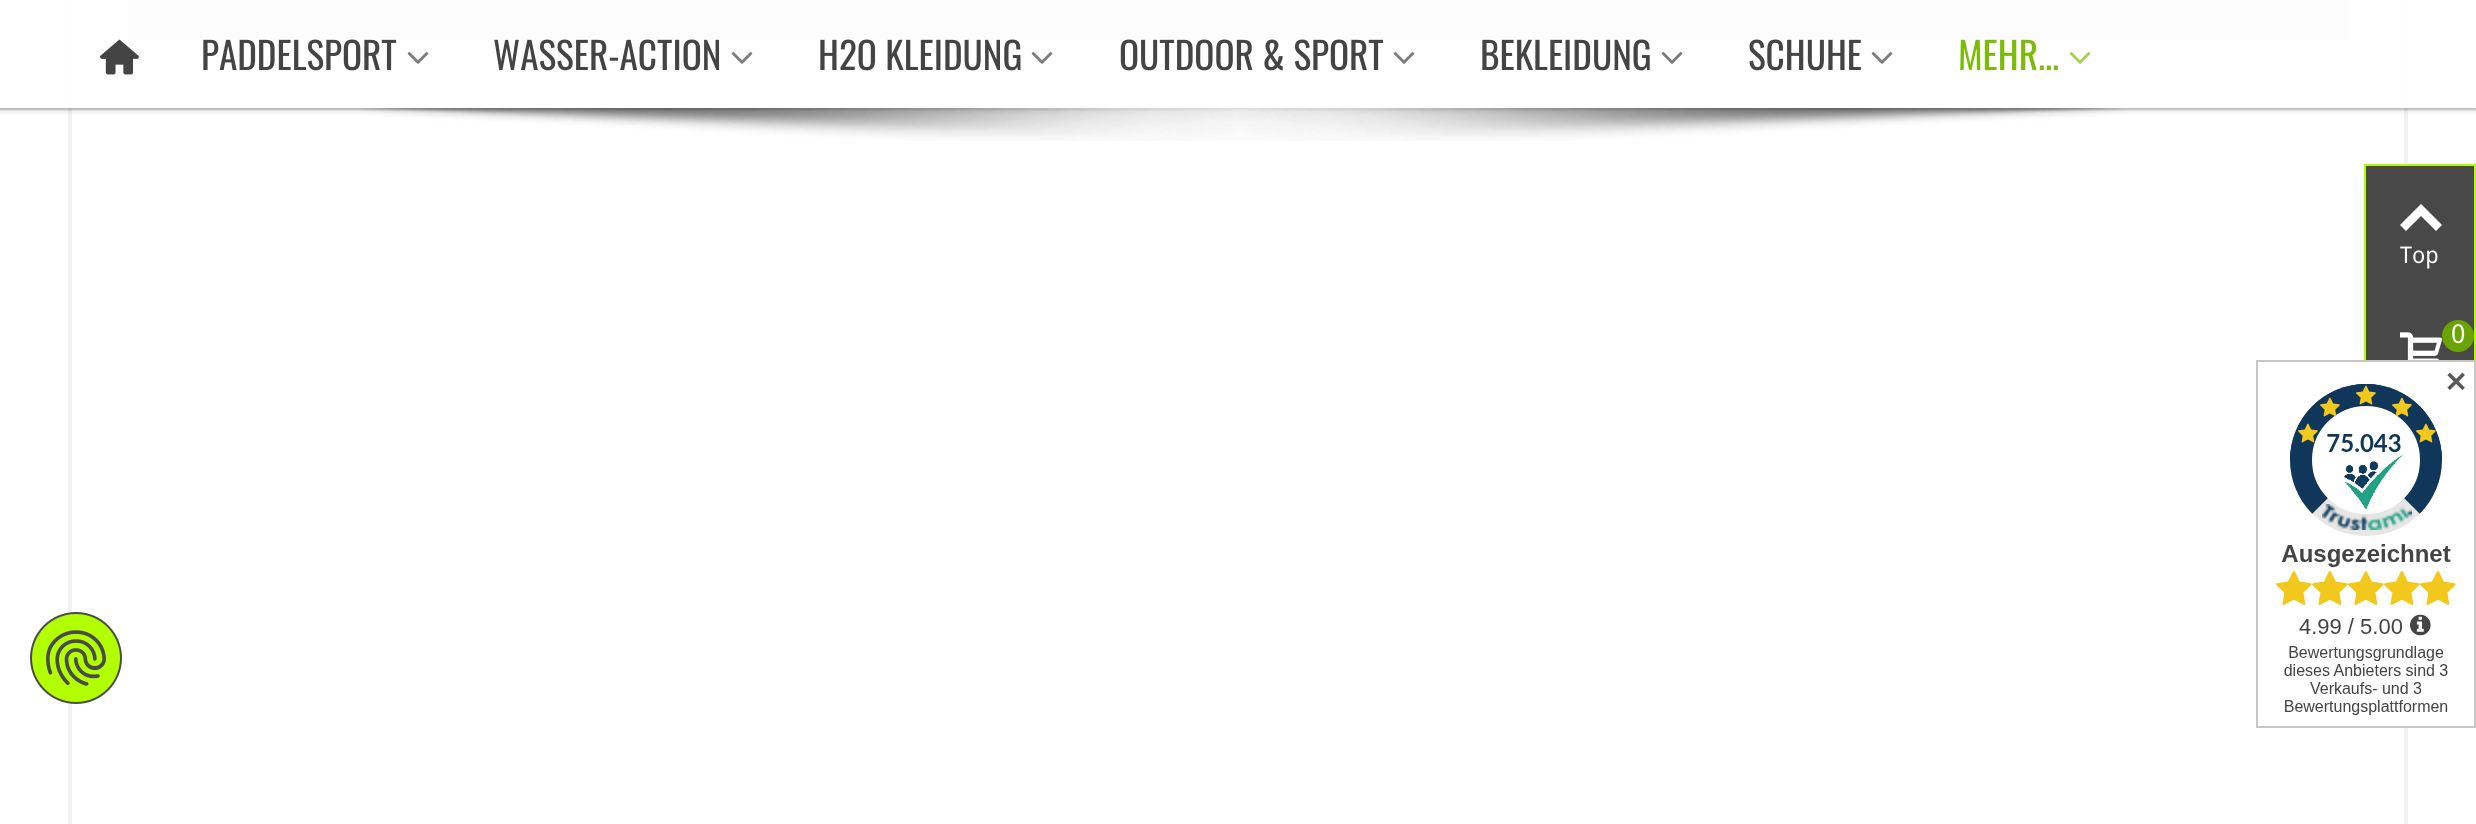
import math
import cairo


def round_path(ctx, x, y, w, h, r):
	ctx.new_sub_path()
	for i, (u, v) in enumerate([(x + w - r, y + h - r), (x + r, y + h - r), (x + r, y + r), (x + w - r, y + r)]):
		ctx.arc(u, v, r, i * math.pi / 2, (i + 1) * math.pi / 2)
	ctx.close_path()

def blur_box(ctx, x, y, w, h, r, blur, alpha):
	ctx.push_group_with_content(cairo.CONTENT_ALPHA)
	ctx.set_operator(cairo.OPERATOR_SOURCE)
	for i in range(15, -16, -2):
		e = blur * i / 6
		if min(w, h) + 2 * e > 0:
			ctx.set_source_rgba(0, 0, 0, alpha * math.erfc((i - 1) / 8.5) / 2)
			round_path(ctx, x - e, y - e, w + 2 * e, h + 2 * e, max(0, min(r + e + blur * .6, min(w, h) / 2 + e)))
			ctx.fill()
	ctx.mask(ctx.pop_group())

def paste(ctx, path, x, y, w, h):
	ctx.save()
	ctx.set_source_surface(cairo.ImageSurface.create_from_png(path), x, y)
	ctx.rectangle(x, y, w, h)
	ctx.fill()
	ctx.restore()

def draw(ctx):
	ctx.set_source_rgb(1, 1, 1)
	ctx.paint()
	ctx.rectangle(70, -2, 2336, 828)
	ctx.set_source_rgb(0.945, 0.945, 0.945)
	ctx.set_line_width(4)
	ctx.stroke()
	ctx.set_source_rgb(0.871, 0.871, 0.871)
	ctx.rectangle(128, 0, 2220, 40)
	ctx.fill()
	ctx.save()
	ctx.rectangle(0, 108, 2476, 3)
	ctx.clip()
	ctx.set_source_rgb(0, 0, 0)
	blur_box(ctx, 0, 0, 2476, 108, 0, 4, 0.1)
	ctx.restore()
	ctx.set_source_rgba(1, 1, 1, 0.9)
	ctx.rectangle(68, 0, 2340, 108)
	ctx.fill()
	paste(ctx, 'media/1.png', 100, 39, 39, 36)
	ctx.select_font_face('Oswald')
	ctx.set_font_size(37.25)
	ctx.set_source_rgb(0.267, 0.267, 0.267)
	ctx.move_to(201, 70)
	ctx.show_text('PADDELSPORT')
	paste(ctx, 'media/2.png', 407, 51, 22, 13)
	ctx.move_to(493, 70)
	ctx.show_text('WASSER-ACTION')
	paste(ctx, 'media/2.png', 731, 51, 22, 13)
	ctx.move_to(818, 70)
	ctx.show_text('H2O KLEIDUNG')
	paste(ctx, 'media/2.png', 1031, 51, 22, 13)
	ctx.move_to(1119, 70)
	ctx.show_text('OUTDOOR & SPORT')
	paste(ctx, 'media/2.png', 1393, 51, 22, 13)
	ctx.move_to(1480, 70)
	ctx.show_text('BEKLEIDUNG')
	paste(ctx, 'media/2.png', 1661, 51, 22, 13)
	ctx.move_to(1748, 70)
	ctx.show_text('SCHUHE')
	paste(ctx, 'media/2.png', 1871, 51, 22, 13)
	ctx.set_source_rgb(0.486, 0.737, 0.039)
	ctx.move_to(1958, 70)
	ctx.show_text('MEHR...')
	paste(ctx, 'media/3.png', 2069, 51, 22, 13)
	paste(ctx, 'media/4.png', 0, 108, 2476, 33)
	ctx.rectangle(2365, 165, 110, 410)
	ctx.set_source_rgb(0.694, 1, 0)
	ctx.set_line_width(2)
	ctx.stroke()
	ctx.set_source_rgb(0.282, 0.282, 0.282)
	ctx.rectangle(2366, 166, 108, 194)
	ctx.fill()
	ctx.set_source_rgb(1, 1, 1)
	ctx.new_path()
	ctx.move_to(2400, 225)
	ctx.line_to(2421, 204)
	ctx.line_to(2442, 225)
	ctx.line_to(2436, 231)
	ctx.line_to(2421, 216)
	ctx.line_to(2406, 231)
	ctx.close_path()
	ctx.fill()
	ctx.select_font_face('Droid Sans')
	ctx.set_font_size(23)
	ctx.move_to(2400, 263)
	ctx.show_text('Top')
	paste(ctx, 'media/5.png', 2400, 332, 42, 28)
	ctx.set_source_rgb(0.412, 0.643, 0)
	ctx.arc(2458, 336, 16, 0, 2 * math.pi)
	ctx.fill()
	ctx.set_font_size(26)
	ctx.set_source_rgb(1, 1, 1)
	ctx.move_to(2451, 343)
	ctx.show_text('0')
	paste(ctx, 'media/6.png', 2256, 360, 220, 368)
	ctx.select_font_face('DejaVu Sans', cairo.FONT_SLANT_NORMAL, cairo.FONT_WEIGHT_BOLD)
	ctx.set_font_size(28)
	ctx.set_source_rgb(0.349, 0.349, 0.349)
	ctx.move_to(2444, 392)
	ctx.show_text('✕')
	ctx.set_source_rgb(0.694, 1, 0)
	ctx.new_path()
	ctx.arc(76, 658, 45, 0, 2 * math.pi)
	ctx.fill_preserve()
	ctx.set_source_rgb(0.29, 0.29, 0.29)
	ctx.stroke()
	paste(ctx, 'media/7.png', 46, 630, 60, 56)


surface = cairo.ImageSurface(cairo.FORMAT_RGB24, 2476, 824)
ctx = cairo.Context(surface)
options = cairo.FontOptions()
options.set_hint_metrics(cairo.HINT_METRICS_OFF)
options.set_hint_style(cairo.HINT_STYLE_NONE)
ctx.set_font_options(options)
ctx.set_miter_limit(4)
draw(ctx)
surface.write_to_png('image.png')
